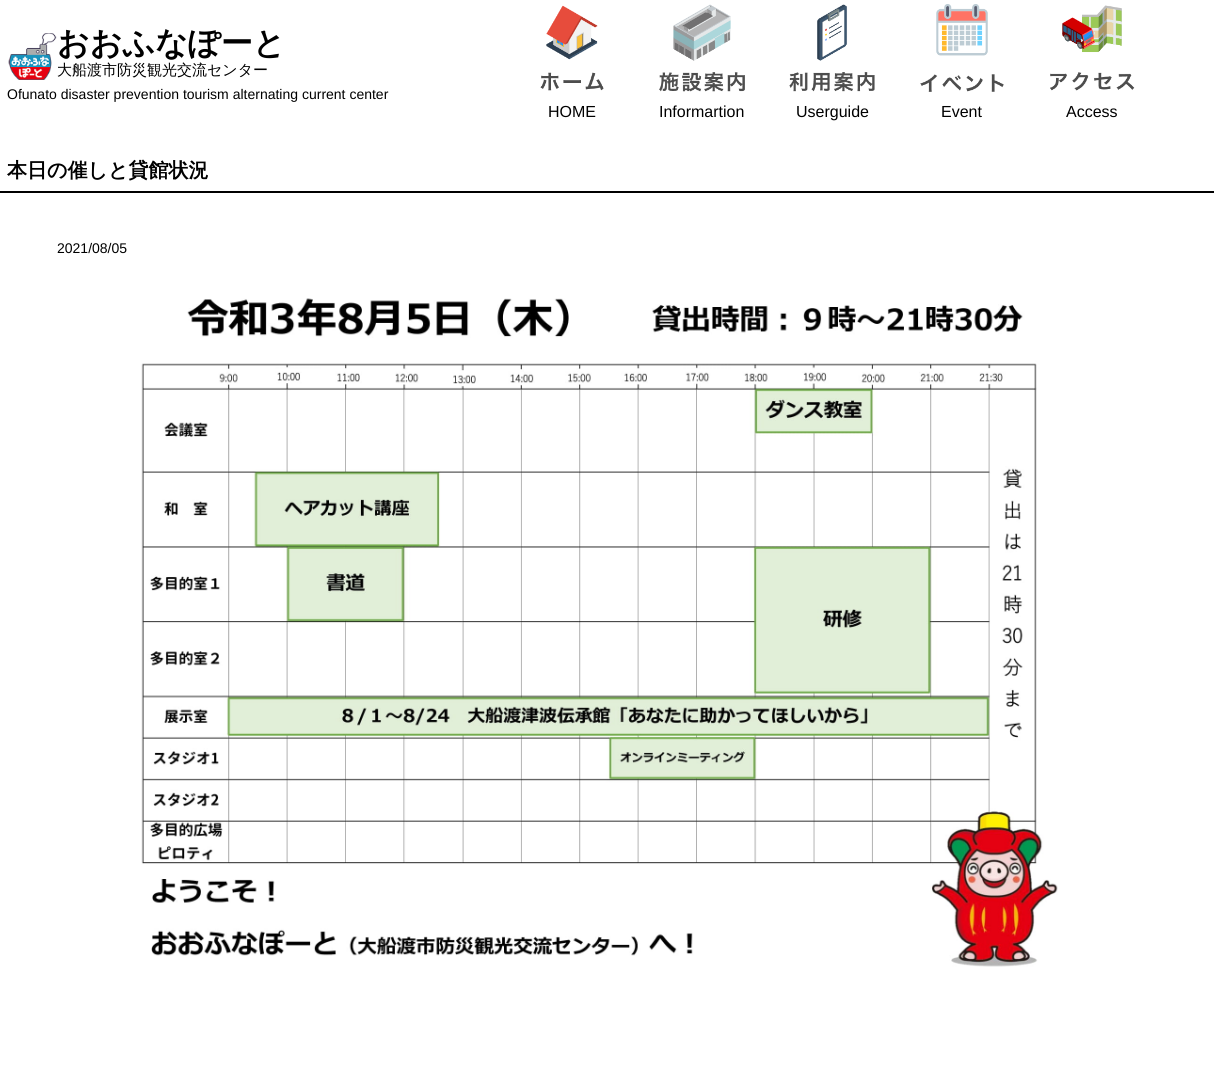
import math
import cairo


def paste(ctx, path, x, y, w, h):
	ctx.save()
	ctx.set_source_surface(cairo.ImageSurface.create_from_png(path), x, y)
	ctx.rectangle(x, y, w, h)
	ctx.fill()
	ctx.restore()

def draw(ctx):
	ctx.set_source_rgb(1, 1, 1)
	ctx.paint()
	paste(ctx, 'media/1.png', 8, 33, 49, 47)
	ctx.select_font_face('WenQuanYi Zen Hei', cairo.FONT_SLANT_NORMAL, cairo.FONT_WEIGHT_BOLD)
	ctx.set_font_size(32)
	ctx.set_source_rgb(0, 0, 0)
	ctx.move_to(57, 54)
	ctx.show_text('おおふなぽーと')
	ctx.select_font_face('WenQuanYi Zen Hei Medium')
	ctx.set_font_size(15)
	ctx.move_to(57, 75)
	ctx.show_text('大船渡市防災観光交流センター')
	ctx.select_font_face('Liberation Sans')
	ctx.set_font_size(14)
	ctx.move_to(7, 99)
	ctx.show_text('Ofunato disaster prevention tourism alternating current center')
	paste(ctx, 'media/2.png', 540, 5, 64, 86)
	ctx.set_font_size(16)
	ctx.move_to(548, 117)
	ctx.show_text('HOME')
	paste(ctx, 'media/3.png', 659, 4, 86, 88)
	ctx.move_to(659, 117)
	ctx.show_text('Informartion')
	paste(ctx, 'media/4.png', 789, 4, 86, 88)
	ctx.move_to(796, 117)
	ctx.show_text('Userguide')
	paste(ctx, 'media/5.png', 920, 4, 84, 88)
	ctx.move_to(941, 117)
	ctx.show_text('Event')
	paste(ctx, 'media/6.png', 1050, 5, 85, 86)
	ctx.move_to(1066, 117)
	ctx.show_text('Access')
	ctx.select_font_face('WenQuanYi Zen Hei', cairo.FONT_SLANT_NORMAL, cairo.FONT_WEIGHT_BOLD)
	ctx.set_font_size(20)
	ctx.move_to(7, 177)
	ctx.show_text('本日の催しと貸館状況')
	ctx.rectangle(0, 191, 1214, 2)
	ctx.fill()
	ctx.select_font_face('Liberation Sans')
	ctx.set_font_size(14)
	ctx.move_to(57, 253)
	ctx.show_text('2021/08/05')
	paste(ctx, 'media/7.png', 141, 298, 917, 669)


surface = cairo.ImageSurface(cairo.FORMAT_RGB24, 1214, 1079)
ctx = cairo.Context(surface)
options = cairo.FontOptions()
options.set_hint_metrics(cairo.HINT_METRICS_OFF)
options.set_hint_style(cairo.HINT_STYLE_NONE)
ctx.set_font_options(options)
ctx.set_miter_limit(4)
draw(ctx)
surface.write_to_png('image.png')
